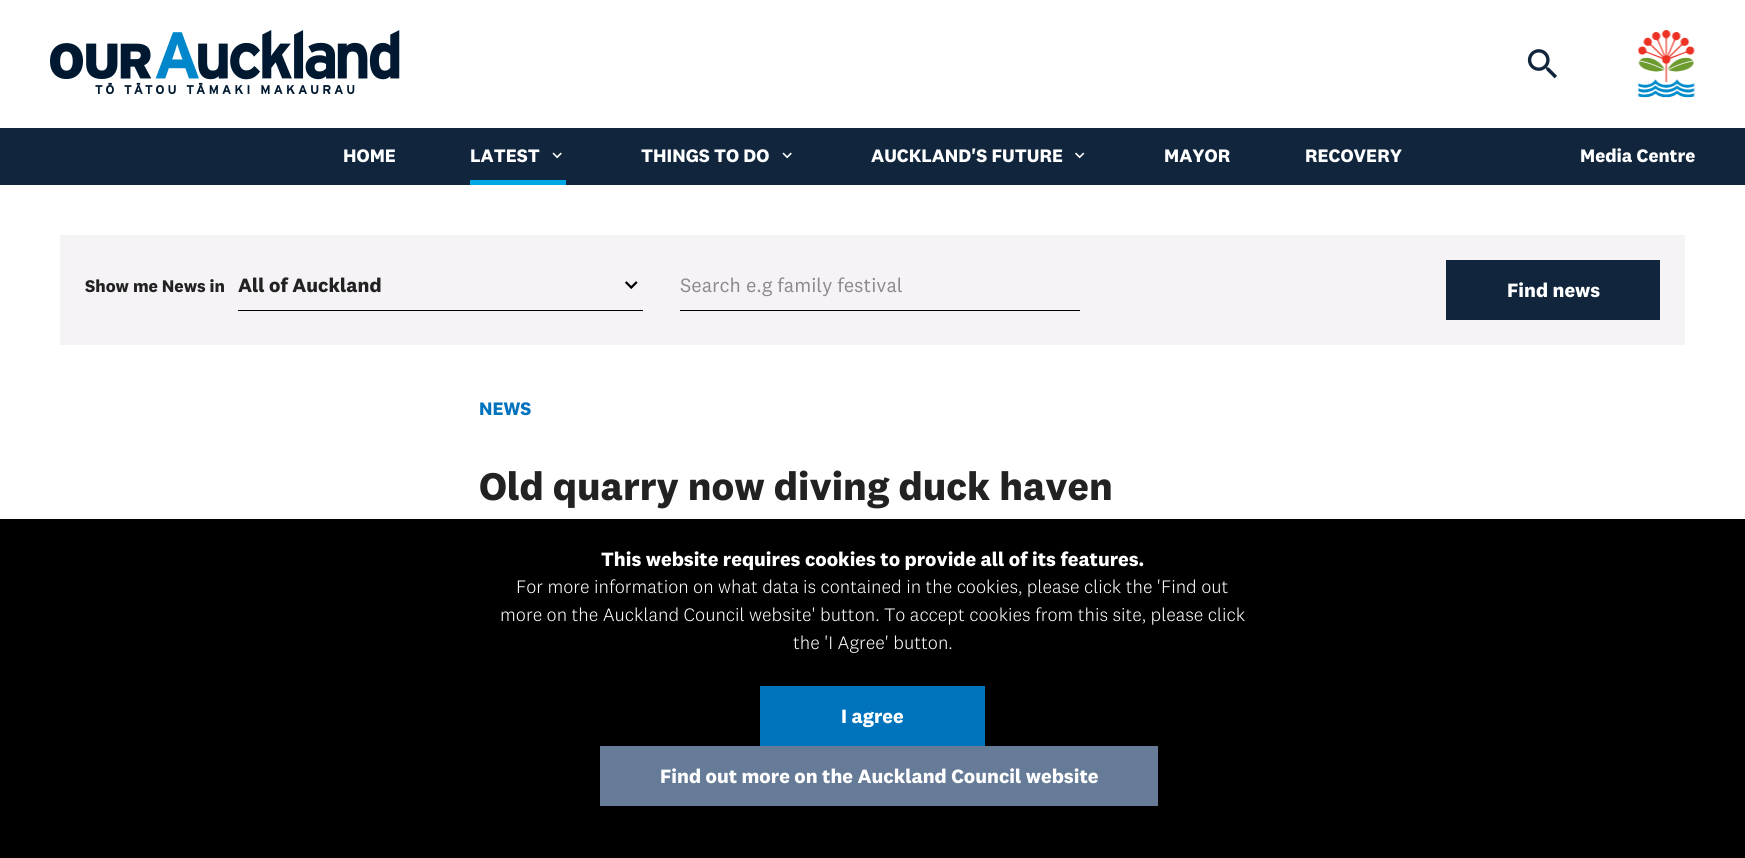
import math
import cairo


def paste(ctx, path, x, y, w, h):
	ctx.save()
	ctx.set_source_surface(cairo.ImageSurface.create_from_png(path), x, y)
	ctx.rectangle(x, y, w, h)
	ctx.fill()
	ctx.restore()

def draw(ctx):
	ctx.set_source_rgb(1, 1, 1)
	ctx.paint()
	paste(ctx, 'media/1.png', 50, 30, 350, 65)
	paste(ctx, 'media/2.png', 1527, 49, 30, 30)
	paste(ctx, 'media/3.png', 1637, 30, 58, 68)
	ctx.set_source_rgb(0.067, 0.149, 0.239)
	ctx.rectangle(0, 128, 1745, 57)
	ctx.fill()
	ctx.select_font_face('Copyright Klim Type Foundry', cairo.FONT_SLANT_NORMAL, cairo.FONT_WEIGHT_BOLD)
	ctx.set_font_size(18.75)
	ctx.set_source_rgb(1, 1, 1)
	ctx.move_to(343, 162)
	ctx.show_text('HOME')
	ctx.move_to(470, 162)
	ctx.show_text('LATEST')
	paste(ctx, 'media/4.png', 552, 152, 10, 7)
	ctx.set_source_rgb(0, 0.655, 0.898)
	ctx.rectangle(470, 180, 96, 5)
	ctx.fill()
	ctx.set_source_rgb(1, 1, 1)
	ctx.move_to(641, 162)
	ctx.show_text('THINGS TO DO')
	paste(ctx, 'media/4.png', 782, 152, 10, 7)
	ctx.move_to(871, 162)
	ctx.show_text('AUCKLAND\'S FUTURE')
	paste(ctx, 'media/5.png', 1075, 152, 10, 7)
	for x, y, s in [
		(1164, 162, 'MAYOR'),
		(1305, 162, 'RECOVERY'),
		(1580, 162, 'Media Centre'),
	]:
		ctx.move_to(x, y)
		ctx.show_text(s)
	ctx.set_source_rgb(0.961, 0.953, 0.961)
	ctx.rectangle(60, 235, 1625, 110)
	ctx.fill()
	ctx.set_font_size(17.5)
	ctx.set_source_rgb(0.133, 0.133, 0.133)
	ctx.move_to(85, 292)
	ctx.show_text('Show me News in')
	paste(ctx, 'media/6.png', 625, 281, 13, 8)
	ctx.set_source_rgb(0, 0, 0)
	ctx.rectangle(238, 310, 405, 1)
	ctx.fill()
	ctx.set_font_size(20)
	ctx.set_source_rgb(0.133, 0.133, 0.133)
	ctx.move_to(238, 292)
	ctx.show_text('All of Auckland')
	ctx.set_source_rgb(0, 0, 0)
	ctx.rectangle(680, 310, 400, 1)
	ctx.fill()
	ctx.select_font_face('Copyright Klim Type Foundry')
	ctx.set_source_rgb(0.549, 0.545, 0.549)
	ctx.move_to(680, 292)
	ctx.show_text('Search e.g family festival')
	ctx.set_source_rgb(0.067, 0.149, 0.239)
	ctx.rectangle(1446, 260, 214, 60)
	ctx.fill()
	ctx.select_font_face('Copyright Klim Type Foundry', cairo.FONT_SLANT_NORMAL, cairo.FONT_WEIGHT_BOLD)
	ctx.set_source_rgb(1, 1, 1)
	ctx.move_to(1507, 297)
	ctx.show_text('Find news')
	ctx.set_font_size(18.75)
	ctx.set_source_rgb(0, 0.451, 0.741)
	ctx.move_to(479, 415)
	ctx.show_text('NEWS')
	ctx.set_font_size(40)
	ctx.set_source_rgb(0.133, 0.133, 0.133)
	ctx.move_to(479, 500)
	ctx.show_text('Old quarry now diving duck haven')
	ctx.set_source_rgb(0, 0, 0)
	ctx.rectangle(0, 519, 1745, 339)
	ctx.fill()
	ctx.set_font_size(20)
	ctx.set_source_rgb(1, 1, 1)
	ctx.move_to(601, 566)
	ctx.show_text('This website requires cookies to provide all of its features.')
	ctx.select_font_face('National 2 Light')
	ctx.set_font_size(18.75)
	for x, y, s in [
		(516, 593, 'For more information on what data is contained in the cookies, please click the \'Find out'),
		(500, 621, 'more on the Auckland Council website\' button. To accept cookies from this site, please click'),
		(793, 649, 'the \'I Agree\' button.'),
	]:
		ctx.move_to(x, y)
		ctx.show_text(s)
	ctx.set_source_rgb(0, 0.451, 0.741)
	ctx.rectangle(760, 686, 225, 60)
	ctx.fill()
	ctx.select_font_face('Copyright Klim Type Foundry', cairo.FONT_SLANT_NORMAL, cairo.FONT_WEIGHT_BOLD)
	ctx.set_font_size(20)
	ctx.set_source_rgb(1, 1, 1)
	ctx.move_to(841, 723)
	ctx.show_text('I agree')
	ctx.set_source_rgb(0.396, 0.482, 0.592)
	ctx.rectangle(600, 746, 558, 60)
	ctx.fill()
	ctx.set_source_rgb(1, 1, 1)
	ctx.move_to(660, 783)
	ctx.show_text('Find out more on the Auckland Council website')


surface = cairo.ImageSurface(cairo.FORMAT_RGB24, 1745, 858)
ctx = cairo.Context(surface)
options = cairo.FontOptions()
options.set_hint_metrics(cairo.HINT_METRICS_OFF)
options.set_hint_style(cairo.HINT_STYLE_NONE)
ctx.set_font_options(options)
ctx.set_miter_limit(4)
draw(ctx)
surface.write_to_png('image.png')
